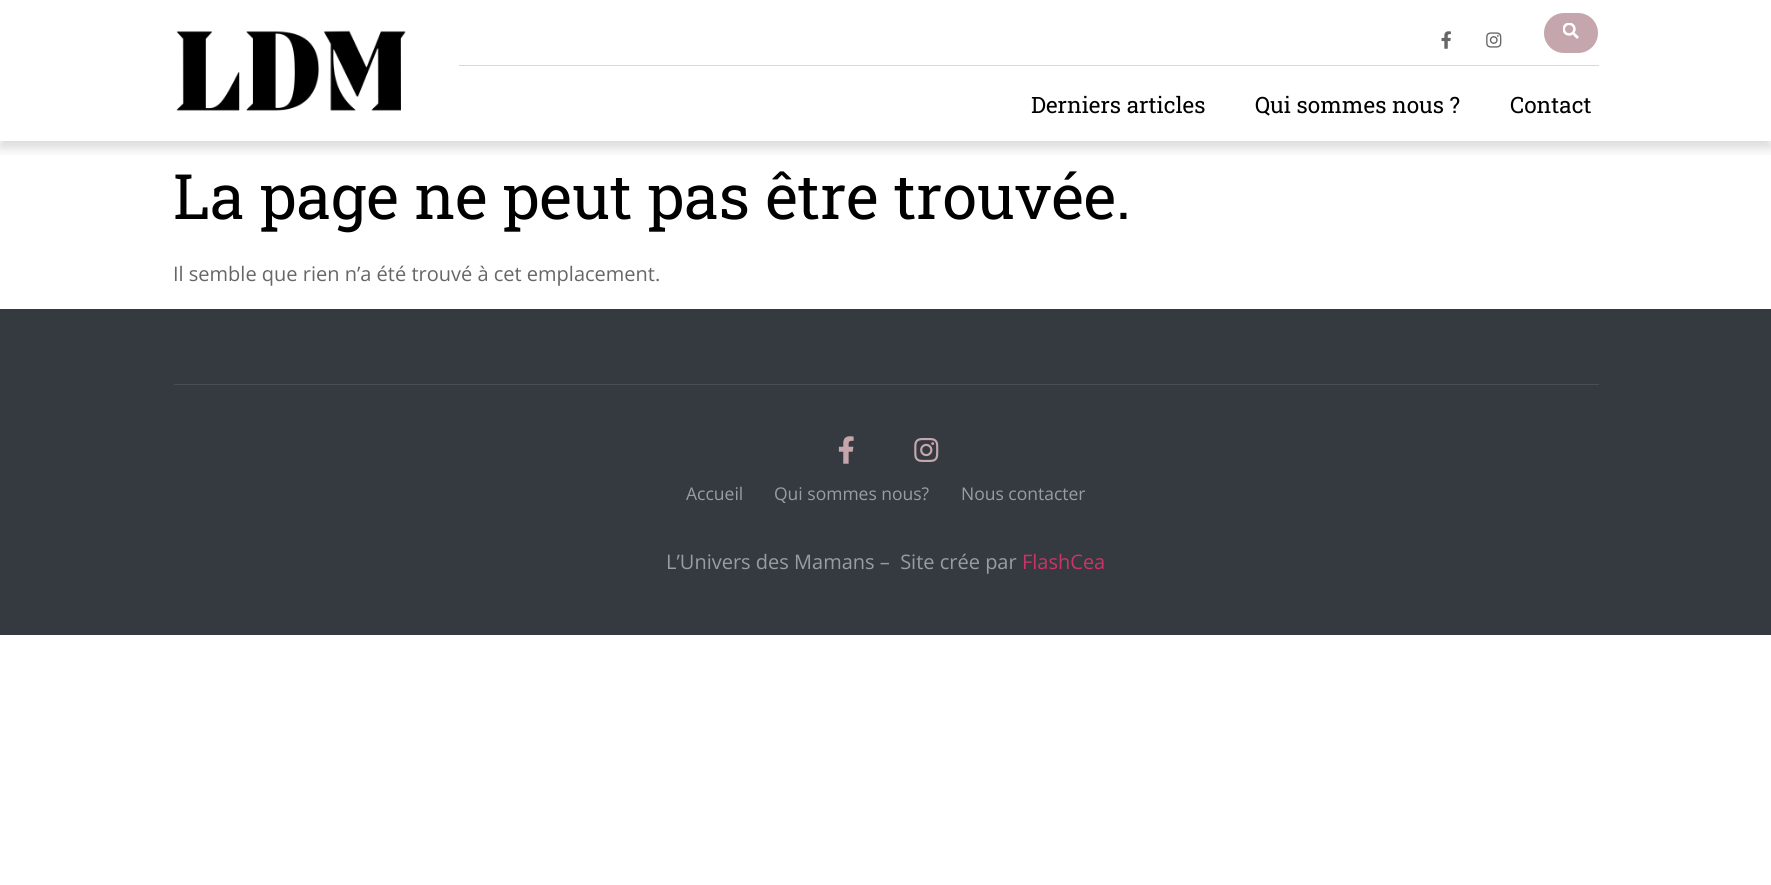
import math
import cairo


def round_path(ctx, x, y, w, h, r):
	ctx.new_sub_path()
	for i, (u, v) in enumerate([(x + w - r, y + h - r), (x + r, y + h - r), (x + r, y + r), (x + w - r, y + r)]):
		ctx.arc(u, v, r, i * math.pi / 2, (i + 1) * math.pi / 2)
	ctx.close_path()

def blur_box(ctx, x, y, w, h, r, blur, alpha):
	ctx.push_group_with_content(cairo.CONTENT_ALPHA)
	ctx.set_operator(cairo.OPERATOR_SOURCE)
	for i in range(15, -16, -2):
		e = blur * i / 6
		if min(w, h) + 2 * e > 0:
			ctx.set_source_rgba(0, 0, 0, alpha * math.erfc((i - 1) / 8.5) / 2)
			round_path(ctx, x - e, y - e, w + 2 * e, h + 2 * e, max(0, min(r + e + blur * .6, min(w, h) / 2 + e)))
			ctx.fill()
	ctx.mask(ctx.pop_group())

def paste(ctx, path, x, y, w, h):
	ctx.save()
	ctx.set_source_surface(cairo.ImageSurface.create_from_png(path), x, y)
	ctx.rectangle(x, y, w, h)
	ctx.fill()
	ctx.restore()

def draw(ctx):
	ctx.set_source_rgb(1, 1, 1)
	ctx.paint()
	ctx.save()
	ctx.rectangle(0, 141, 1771, 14)
	ctx.clip()
	ctx.set_source_rgb(0, 0, 0)
	blur_box(ctx, 0, 6, 1771, 142, 0, 6, 0.15)
	ctx.restore()
	paste(ctx, 'media/1.png', 176, 30, 230, 81)
	paste(ctx, 'media/2.png', 1441, 31, 10, 18)
	paste(ctx, 'media/3.png', 1486, 32, 16, 16)
	ctx.set_source_rgb(0.773, 0.651, 0.675)
	round_path(ctx, 1544, 13, 54, 40, 20)
	ctx.fill()
	paste(ctx, 'media/4.png', 1563, 23, 16, 16)
	ctx.set_source_rgb(0.851, 0.851, 0.851)
	ctx.rectangle(459, 65, 1140, 1)
	ctx.fill()
	ctx.select_font_face('Roboto Slab')
	ctx.set_font_size(22.5)
	ctx.set_source_rgb(0, 0, 0)
	for x, y, s in [
		(1031, 113, 'Derniers articles'),
		(1255, 113, 'Qui sommes nous ?'),
		(1510, 113, 'Contact'),
	]:
		ctx.move_to(x, y)
		ctx.show_text(s)
	ctx.set_font_size(62.5)
	ctx.move_to(173, 219)
	ctx.show_text('La page ne peut pas être trouvée.')
	ctx.select_font_face('Open Sans')
	ctx.set_font_size(20)
	ctx.set_source_rgb(0.4, 0.4, 0.4)
	ctx.move_to(173, 281)
	ctx.show_text('Il semble que rien n’a été trouvé à cet emplacement.')
	ctx.set_source_rgb(0.204, 0.227, 0.251)
	ctx.rectangle(0, 309, 1771, 326)
	ctx.fill()
	ctx.set_source_rgb(0.282, 0.306, 0.325)
	ctx.rectangle(174, 384, 1425, 1)
	ctx.fill()
	paste(ctx, 'media/5.png', 838, 436, 16, 28)
	paste(ctx, 'media/6.png', 914, 437, 25, 25)
	ctx.set_font_size(17.5)
	ctx.set_source_rgb(0.604, 0.616, 0.627)
	for x, y, s in [
		(686, 500, 'Accueil'),
		(774, 500, 'Qui sommes nous?'),
		(961, 500, 'Nous contacter'),
	]:
		ctx.move_to(x, y)
		ctx.show_text(s)
	ctx.set_font_size(20)
	ctx.move_to(666, 569)
	ctx.show_text('L’Univers des Mamans –  Site crée par')
	ctx.set_source_rgb(0.8, 0.2, 0.4)
	ctx.move_to(1022, 569)
	ctx.show_text('FlashCea')


surface = cairo.ImageSurface(cairo.FORMAT_RGB24, 1771, 885)
ctx = cairo.Context(surface)
options = cairo.FontOptions()
options.set_hint_metrics(cairo.HINT_METRICS_OFF)
options.set_hint_style(cairo.HINT_STYLE_NONE)
ctx.set_font_options(options)
ctx.set_miter_limit(4)
draw(ctx)
surface.write_to_png('image.png')
